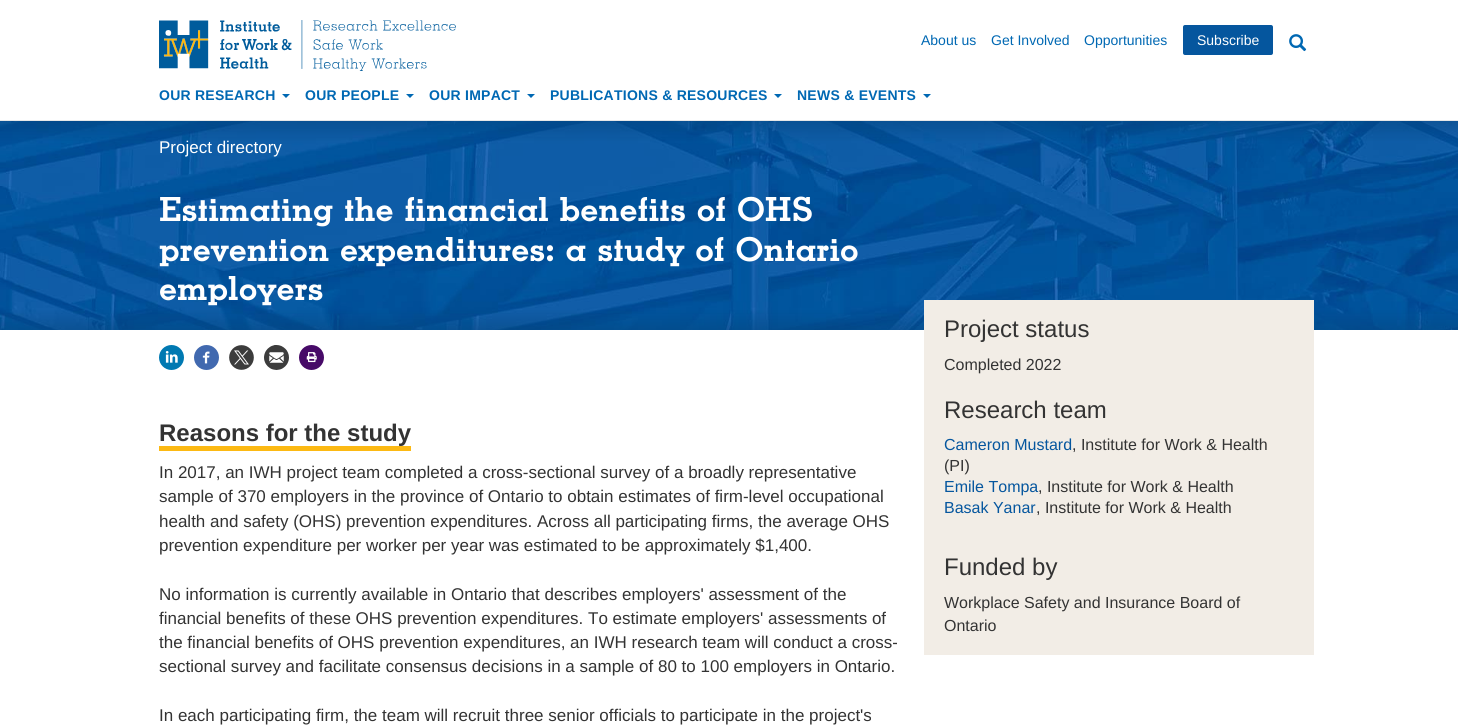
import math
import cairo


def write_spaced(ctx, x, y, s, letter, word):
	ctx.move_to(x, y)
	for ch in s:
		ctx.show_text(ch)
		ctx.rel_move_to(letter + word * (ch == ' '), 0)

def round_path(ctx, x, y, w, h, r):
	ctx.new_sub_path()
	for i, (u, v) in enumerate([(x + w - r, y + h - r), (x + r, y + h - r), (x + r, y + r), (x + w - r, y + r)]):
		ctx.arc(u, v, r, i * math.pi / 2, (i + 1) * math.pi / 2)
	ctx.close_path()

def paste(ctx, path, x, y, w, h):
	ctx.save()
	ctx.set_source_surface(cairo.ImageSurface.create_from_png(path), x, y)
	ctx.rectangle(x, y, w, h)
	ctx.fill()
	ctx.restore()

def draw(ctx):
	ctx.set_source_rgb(1, 1, 1)
	ctx.paint()
	ctx.set_source_rgb(0.906, 0.906, 0.906)
	ctx.rectangle(0, 120, 1458, 1)
	ctx.fill()
	paste(ctx, 'media/1.png', 159, 20, 297, 51)
	ctx.select_font_face('Liberation Sans')
	ctx.set_font_size(14)
	ctx.set_source_rgb(0, 0.408, 0.702)
	for x, y, s in [
		(921, 45, 'About us'),
		(991, 45, 'Get Involved'),
		(1084, 45, 'Opportunities'),
	]:
		ctx.move_to(x, y)
		ctx.show_text(s)
	ctx.set_source_rgb(0.02, 0.337, 0.62)
	round_path(ctx, 1184, 26, 88, 28, 1)
	ctx.fill_preserve()
	ctx.stroke()
	ctx.set_source_rgb(1, 1, 1)
	ctx.move_to(1197, 45)
	ctx.show_text('Subscribe')
	paste(ctx, 'media/2.png', 1289, 34, 18, 18)
	ctx.select_font_face('Liberation Sans', cairo.FONT_SLANT_NORMAL, cairo.FONT_WEIGHT_BOLD)
	ctx.set_source_rgb(0, 0.408, 0.702)
	write_spaced(ctx, 159, 100, 'OUR RESEARCH', 0.25, 0)
	ctx.new_path()
	ctx.move_to(282, 94)
	ctx.line_to(290, 94)
	ctx.line_to(286, 98)
	ctx.close_path()
	ctx.fill()
	write_spaced(ctx, 305, 100, 'OUR PEOPLE', 0.25, 0)
	ctx.new_path()
	ctx.move_to(406, 94)
	ctx.line_to(414, 94)
	ctx.line_to(410, 98)
	ctx.close_path()
	ctx.fill()
	write_spaced(ctx, 429, 100, 'OUR IMPACT', 0.25, 0)
	ctx.new_path()
	ctx.move_to(527, 94)
	ctx.line_to(535, 94)
	ctx.line_to(531, 98)
	ctx.close_path()
	ctx.fill()
	write_spaced(ctx, 550, 100, 'PUBLICATIONS & RESOURCES', 0.25, 0)
	ctx.new_path()
	ctx.move_to(774, 94)
	ctx.line_to(782, 94)
	ctx.line_to(778, 98)
	ctx.close_path()
	ctx.fill()
	write_spaced(ctx, 797, 100, 'NEWS & EVENTS', 0.25, 0)
	ctx.new_path()
	ctx.move_to(923, 94)
	ctx.line_to(931, 94)
	ctx.line_to(927, 98)
	ctx.close_path()
	ctx.fill()
	paste(ctx, 'media/3.png', 0, 121, 1458, 209)
	ctx.select_font_face('Liberation Sans')
	ctx.set_font_size(17)
	ctx.set_source_rgb(1, 1, 1)
	ctx.move_to(159, 153)
	ctx.show_text('Project directory')
	ctx.select_font_face('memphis')
	ctx.set_font_size(36)
	for x, y, s in [
		(159, 221, 'Estimating the financial benefits of OHS'),
		(159, 261, 'prevention expenditures: a study of Ontario'),
		(159, 300, 'employers'),
	]:
		ctx.move_to(x, y)
		ctx.show_text(s)
	paste(ctx, 'media/4.png', 159, 345, 25, 25)
	paste(ctx, 'media/5.png', 194, 345, 25, 25)
	paste(ctx, 'media/6.png', 229, 345, 25, 25)
	paste(ctx, 'media/7.png', 264, 345, 25, 25)
	paste(ctx, 'media/8.png', 299, 345, 25, 25)
	ctx.set_source_rgb(0.988, 0.725, 0.075)
	ctx.rectangle(159, 446, 252, 5)
	ctx.fill()
	ctx.select_font_face('Liberation Sans', cairo.FONT_SLANT_NORMAL, cairo.FONT_WEIGHT_BOLD)
	ctx.set_font_size(24)
	ctx.set_source_rgb(0.2, 0.2, 0.2)
	ctx.move_to(159, 441)
	ctx.show_text('Reasons for the study')
	ctx.select_font_face('Liberation Sans')
	ctx.set_font_size(17)
	for x, y, s in [
		(159, 478, 'In 2017, an IWH project team completed a cross-sectional survey of a broadly representative'),
		(159, 502, 'sample of 370 employers in the province of Ontario to obtain estimates of firm-level occupational'),
		(159, 527, 'health and safety (OHS) prevention expenditures. Across all participating firms, the average OHS'),
		(159, 551, 'prevention expenditure per worker per year was estimated to be approximately $1,400.'),
		(159, 600, 'No information is currently available in Ontario that describes employers\' assessment of the'),
		(159, 624, 'financial benefits of these OHS prevention expenditures. To estimate employers\' assessments of'),
		(159, 648, 'the financial benefits of OHS prevention expenditures, an IWH research team will conduct a cross-'),
		(159, 672, 'sectional survey and facilitate consensus decisions in a sample of 80 to 100 employers in Ontario.'),
		(159, 721, 'In each participating firm, the team will recruit three senior officials to participate in the project\'s'),
	]:
		ctx.move_to(x, y)
		ctx.show_text(s)
	ctx.set_source_rgb(0.949, 0.929, 0.902)
	ctx.rectangle(924, 300, 390, 355)
	ctx.fill()
	ctx.set_font_size(24)
	ctx.set_source_rgb(0.2, 0.2, 0.2)
	ctx.move_to(944, 337)
	ctx.show_text('Project status')
	ctx.set_font_size(16)
	ctx.move_to(944, 370)
	ctx.show_text('Completed 2022')
	ctx.set_font_size(24)
	ctx.move_to(944, 418)
	ctx.show_text('Research team')
	ctx.set_font_size(16)
	ctx.set_source_rgb(0.02, 0.337, 0.62)
	ctx.move_to(944, 450)
	ctx.show_text('Cameron Mustard')
	ctx.set_source_rgb(0.2, 0.2, 0.2)
	ctx.move_to(1072, 450)
	ctx.show_text(', Institute for Work & Health')
	ctx.move_to(944, 471)
	ctx.show_text('(PI)')
	ctx.set_source_rgb(0.02, 0.337, 0.62)
	ctx.move_to(944, 492)
	ctx.show_text('Emile Tompa')
	ctx.set_source_rgb(0.2, 0.2, 0.2)
	ctx.move_to(1038, 492)
	ctx.show_text(', Institute for Work & Health')
	ctx.set_source_rgb(0.02, 0.337, 0.62)
	ctx.move_to(944, 513)
	ctx.show_text('Basak Yanar')
	ctx.set_source_rgb(0.2, 0.2, 0.2)
	ctx.move_to(1036, 513)
	ctx.show_text(', Institute for Work & Health')
	ctx.set_font_size(24)
	ctx.move_to(944, 575)
	ctx.show_text('Funded by')
	ctx.set_font_size(16)
	ctx.move_to(944, 608)
	ctx.show_text('Workplace Safety and Insurance Board of')
	ctx.move_to(944, 631)
	ctx.show_text('Ontario')


surface = cairo.ImageSurface(cairo.FORMAT_RGB24, 1458, 726)
ctx = cairo.Context(surface)
options = cairo.FontOptions()
options.set_hint_metrics(cairo.HINT_METRICS_OFF)
options.set_hint_style(cairo.HINT_STYLE_NONE)
ctx.set_font_options(options)
ctx.set_miter_limit(4)
draw(ctx)
surface.write_to_png('image.png')
